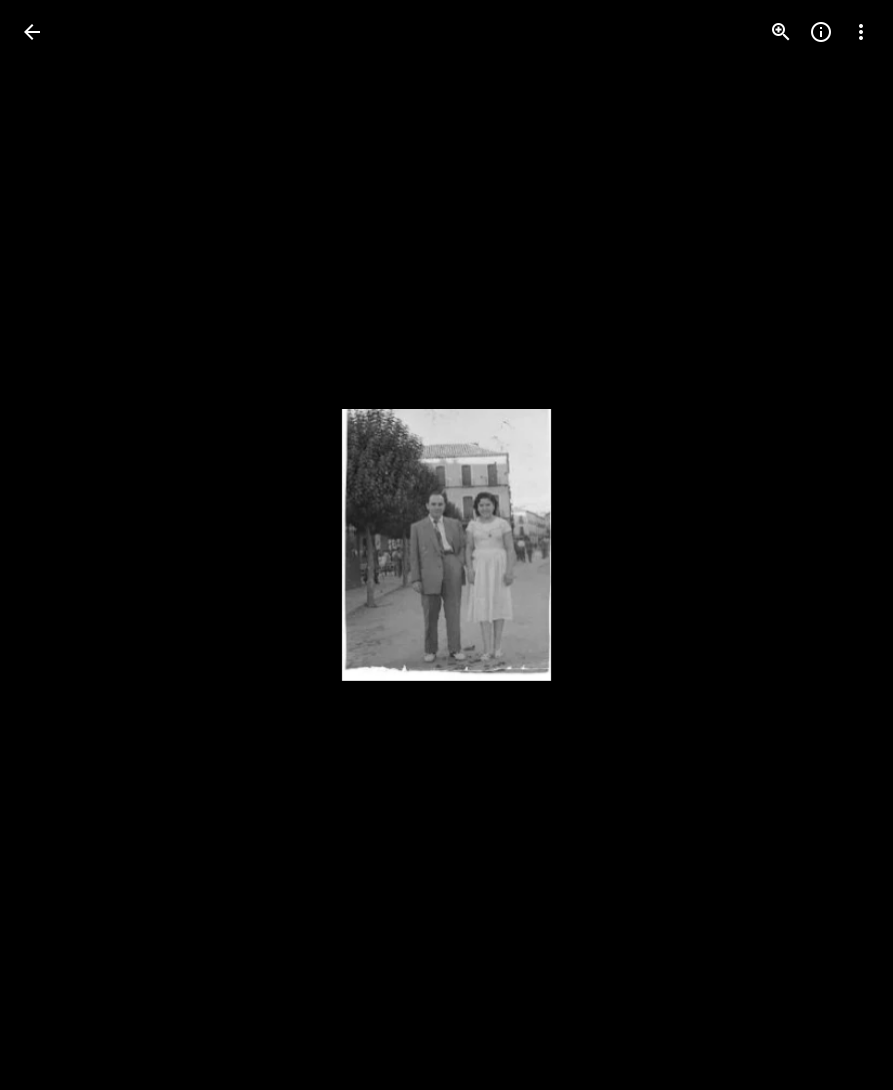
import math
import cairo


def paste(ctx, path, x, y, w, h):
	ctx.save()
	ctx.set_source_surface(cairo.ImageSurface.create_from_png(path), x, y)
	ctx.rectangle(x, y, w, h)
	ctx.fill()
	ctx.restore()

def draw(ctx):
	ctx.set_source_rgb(0, 0, 0)
	ctx.paint()
	paste(ctx, 'media/1.png', 24, 24, 16, 16)
	paste(ctx, 'media/2.png', 772, 23, 18, 18)
	paste(ctx, 'media/3.png', 811, 22, 20, 20)
	paste(ctx, 'media/4.png', 859, 24, 4, 16)
	paste(ctx, 'media/5.png', 341, 409, 211, 272)


surface = cairo.ImageSurface(cairo.FORMAT_RGB24, 893, 1090)
ctx = cairo.Context(surface)
options = cairo.FontOptions()
options.set_hint_metrics(cairo.HINT_METRICS_OFF)
options.set_hint_style(cairo.HINT_STYLE_NONE)
ctx.set_font_options(options)
ctx.set_miter_limit(4)
draw(ctx)
surface.write_to_png('image.png')
